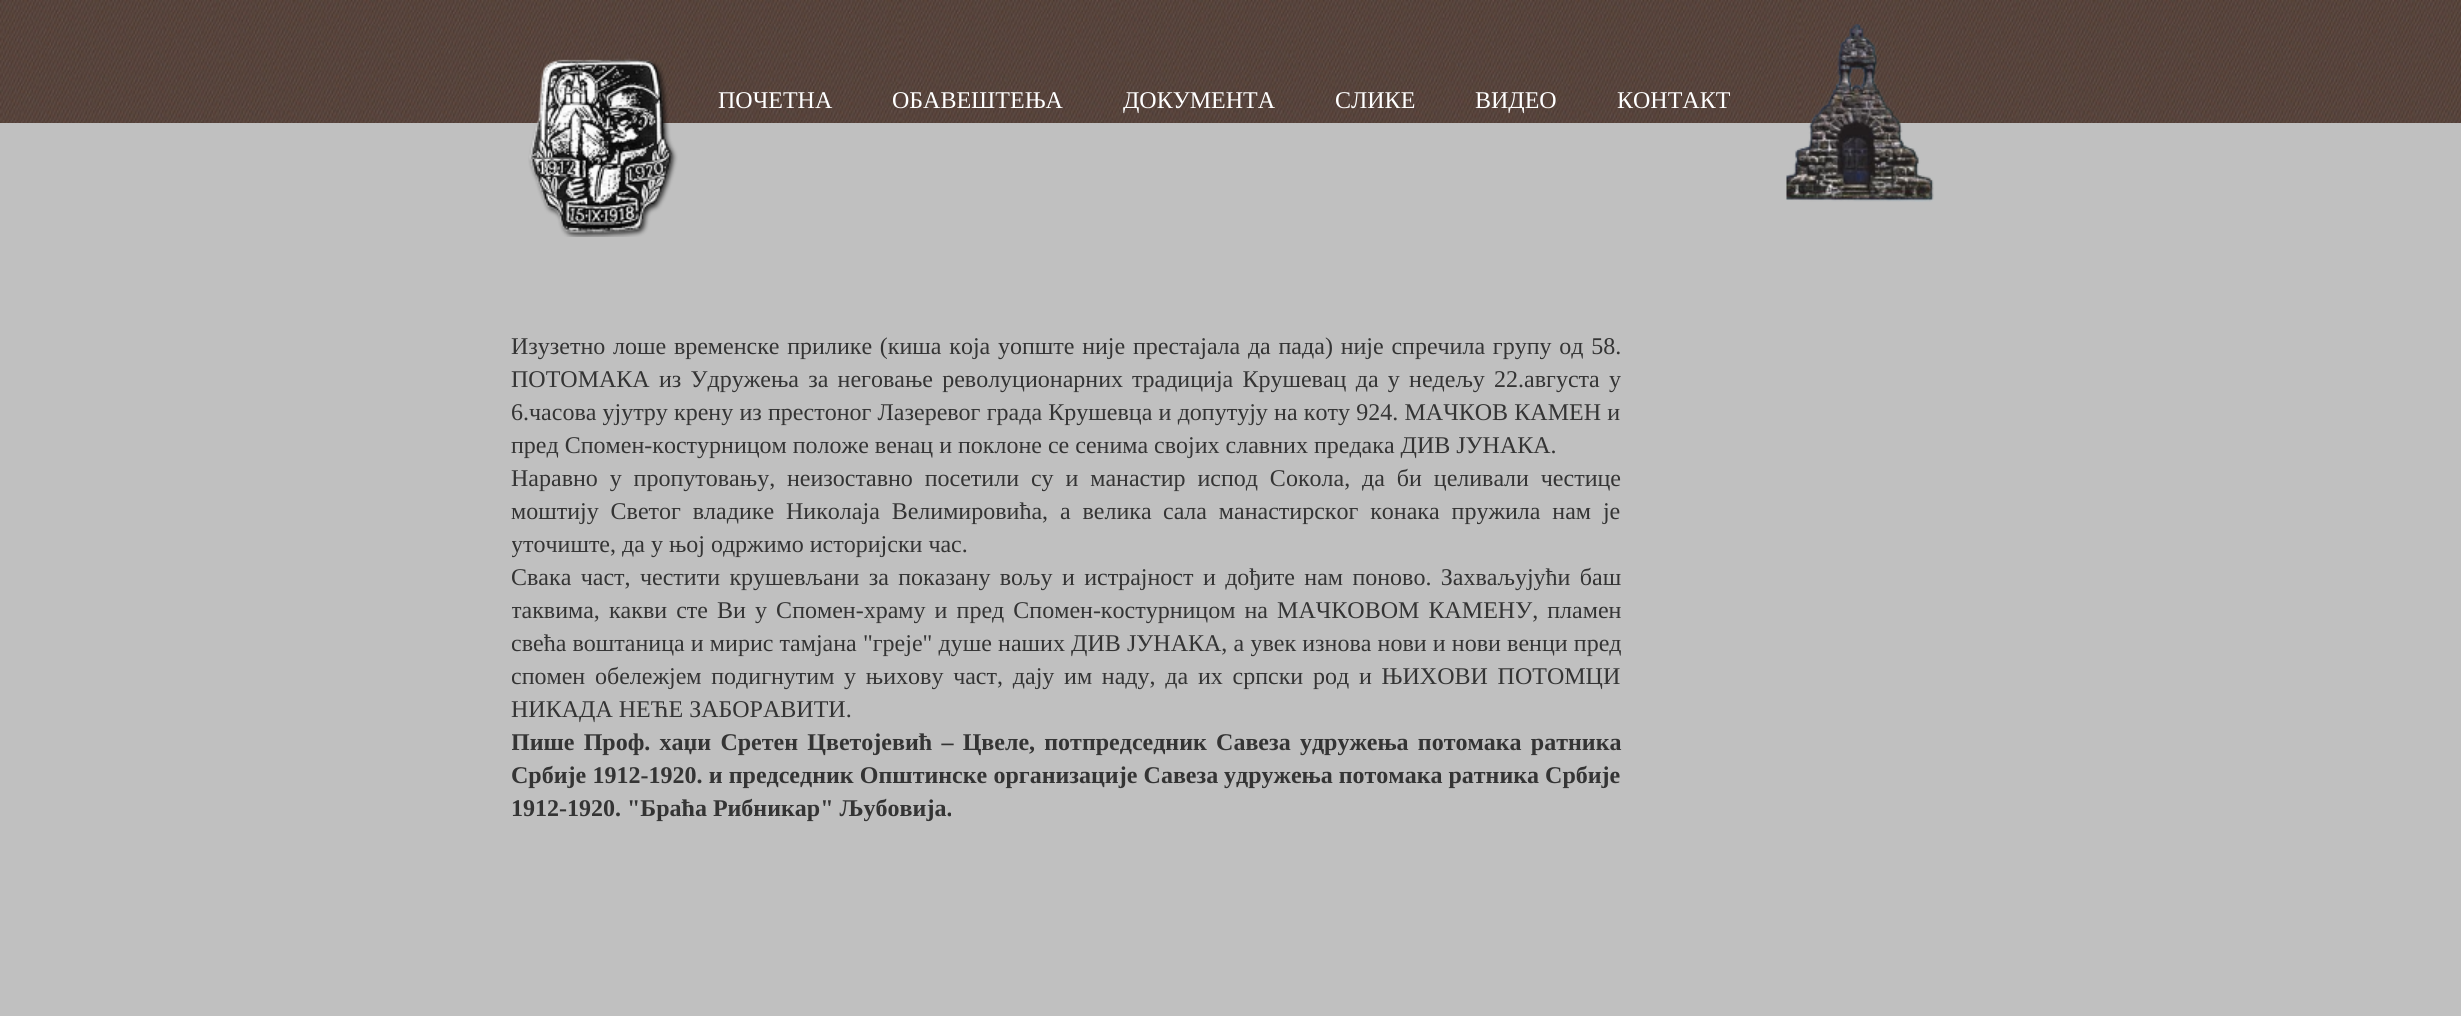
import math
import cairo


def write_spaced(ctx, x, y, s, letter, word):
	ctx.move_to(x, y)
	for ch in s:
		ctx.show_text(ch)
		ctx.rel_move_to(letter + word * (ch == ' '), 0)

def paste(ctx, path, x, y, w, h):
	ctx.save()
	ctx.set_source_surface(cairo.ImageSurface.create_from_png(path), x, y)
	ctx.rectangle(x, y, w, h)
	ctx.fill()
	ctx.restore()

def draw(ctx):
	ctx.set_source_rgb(1, 1, 1)
	ctx.paint()
	paste(ctx, 'media/1.png', 0, 0, 2461, 123)
	ctx.set_source_rgb(0.753, 0.753, 0.753)
	ctx.rectangle(0, 123, 2461, 893)
	ctx.fill()
	paste(ctx, 'media/2.png', 528, 58, 150, 179)
	ctx.select_font_face('Liberation Serif')
	ctx.set_font_size(24)
	ctx.set_source_rgb(1, 1, 1)
	for x, y, s in [
		(718, 108, 'ПОЧЕТНА'),
		(892, 108, 'ОБАВЕШТЕЊА'),
		(1123, 108, 'ДОКУМЕНТА'),
		(1335, 108, 'СЛИКЕ'),
		(1475, 108, 'ВИДЕО'),
		(1617, 108, 'КОНТАКТ'),
	]:
		ctx.move_to(x, y)
		ctx.show_text(s)
	paste(ctx, 'media/3.png', 1786, 24, 148, 178)
	ctx.set_source_rgb(0.204, 0.204, 0.204)
	write_spaced(ctx, 511, 354, 'Изузетно лоше временске прилике (киша која уопште није престајала да пада) није спречила групу од 58.', 0, 1.75)
	write_spaced(ctx, 511, 387, 'ПОТОМАКА из Удружења за неговање револуционарних', 0, 3.25)
	write_spaced(ctx, 1132, 387, 'традиција Крушевац да у недељу 22.августа у', 0, 3.25)
	ctx.save()
	ctx.rectangle(512, 270, 1440, 630)
	ctx.clip()
	write_spaced(ctx, 511, 420, '6.часова ујутру крену из престоног Лазеревог града Крушевца и допутују на коту 924. МАЧКОВ КАМЕН и', 0, 0.25)
	ctx.restore()
	ctx.move_to(511, 453)
	ctx.show_text('пред Спомен-костурницом положе венац и поклоне се сенима својих славних предака ДИВ ЈУНАКА.')
	for x, y, s in [
		(511, 486, 'Наравно у пропутовању, неизоставно посетили су и манастир испод Сокола, да би целивали честице'),
		(511, 519, 'моштију Светог владике Николаја Велимировића, а велика'),
		(1163, 519, 'сала манастирског конака пружила нам је'),
	]:
		write_spaced(ctx, x, y, s, 0, 5.9)
	ctx.save()
	ctx.rectangle(512, 270, 1440, 630)
	ctx.clip()
	ctx.move_to(511, 552)
	ctx.show_text('уточиште, да у њој одржимо историјски час.')
	write_spaced(ctx, 511, 585, 'Свака част, честити крушевљани за показану вољу и истрајност и дођите нам поново. Захваљујући баш', 0, 3.4)
	write_spaced(ctx, 511, 618, 'таквима, какви сте Ви у Спомен-храму и пред Спомен-костурницом на МАЧКОВОМ КАМЕНУ, пламен', 0, 3.1)
	write_spaced(ctx, 511, 651, 'свећа воштаница и мирис тамјана "греје" душе наших ДИВ ЈУНАКА, а увек изнова нови и нови венци пред', 0, 0.2)
	write_spaced(ctx, 511, 684, 'спомен обележјем подигнутим у њихову част, дају им наду, да их српски', 0, 3.75)
	ctx.restore()
	write_spaced(ctx, 1313, 684, 'род и ЊИХОВИ ПОТОМЦИ', 0, 3.75)
	ctx.move_to(511, 717)
	ctx.show_text('НИКАДА НЕЋЕ ЗАБОРАВИТИ.')
	ctx.save()
	ctx.rectangle(512, 270, 1440, 630)
	ctx.clip()
	ctx.select_font_face('Liberation Serif', cairo.FONT_SLANT_NORMAL, cairo.FONT_WEIGHT_BOLD)
	write_spaced(ctx, 511, 750, 'Пише Проф. хаџи Сретен Цветојевић – Цвеле, потпредседник Савеза удружења потомака ратника', 0, 3.25)
	ctx.restore()
	ctx.select_font_face('Liberation Serif', cairo.FONT_SLANT_NORMAL, cairo.FONT_WEIGHT_BOLD)
	write_spaced(ctx, 511, 783, 'Србије 1912-1920. и председник Општинске организације Савеза', 0, 0.25)
	ctx.move_to(1224, 783)
	ctx.show_text('удружења потомака ратника Србије')
	ctx.move_to(511, 816)
	ctx.show_text('1912-1920. "Браћа Рибникар" Љубовија.')


surface = cairo.ImageSurface(cairo.FORMAT_RGB24, 2461, 1016)
ctx = cairo.Context(surface)
options = cairo.FontOptions()
options.set_hint_metrics(cairo.HINT_METRICS_OFF)
options.set_hint_style(cairo.HINT_STYLE_NONE)
ctx.set_font_options(options)
ctx.set_miter_limit(4)
draw(ctx)
surface.write_to_png('image.png')
